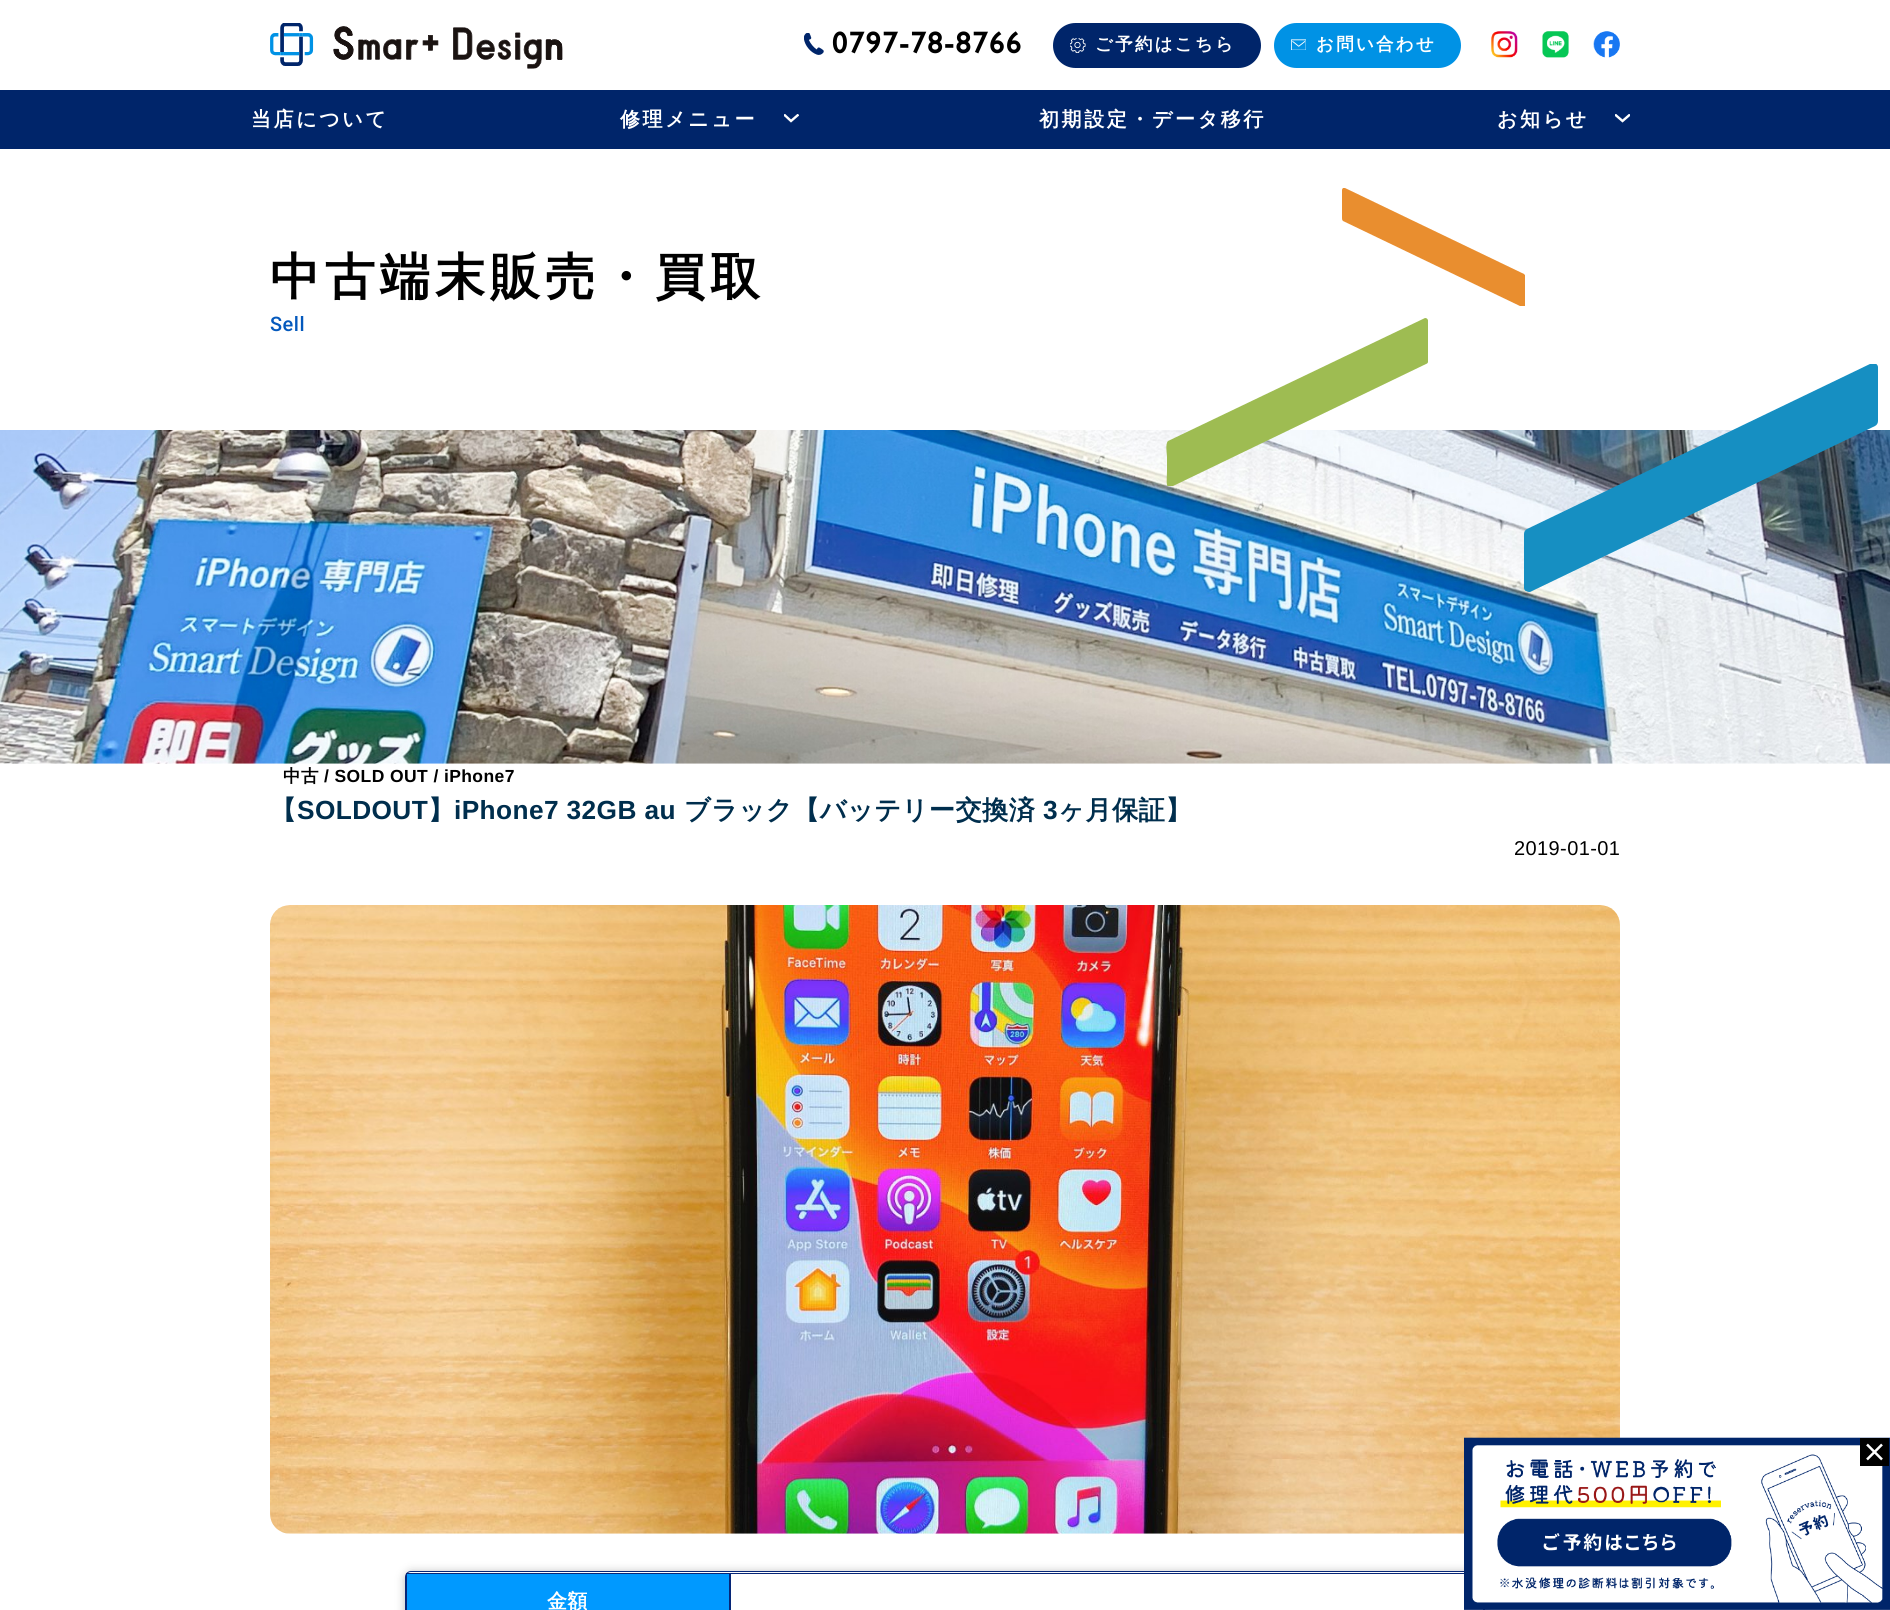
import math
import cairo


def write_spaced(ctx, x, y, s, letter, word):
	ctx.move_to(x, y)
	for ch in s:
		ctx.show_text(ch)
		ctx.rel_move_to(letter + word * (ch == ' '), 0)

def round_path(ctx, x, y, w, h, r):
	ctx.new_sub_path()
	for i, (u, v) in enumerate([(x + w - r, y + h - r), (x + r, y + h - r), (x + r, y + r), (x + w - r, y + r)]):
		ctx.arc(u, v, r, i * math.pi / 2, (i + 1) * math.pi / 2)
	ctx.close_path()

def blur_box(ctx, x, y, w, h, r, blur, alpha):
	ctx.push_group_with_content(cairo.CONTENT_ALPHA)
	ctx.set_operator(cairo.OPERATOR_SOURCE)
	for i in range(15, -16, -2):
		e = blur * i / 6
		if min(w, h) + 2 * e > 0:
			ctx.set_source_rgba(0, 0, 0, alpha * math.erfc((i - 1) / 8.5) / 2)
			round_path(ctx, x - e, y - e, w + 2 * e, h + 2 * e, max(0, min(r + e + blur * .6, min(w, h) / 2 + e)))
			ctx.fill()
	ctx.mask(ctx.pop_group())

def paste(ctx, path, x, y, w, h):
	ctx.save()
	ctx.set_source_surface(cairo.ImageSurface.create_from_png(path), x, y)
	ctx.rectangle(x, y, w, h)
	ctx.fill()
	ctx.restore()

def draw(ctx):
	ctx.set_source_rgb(1, 1, 1)
	ctx.paint()
	paste(ctx, 'media/1.png', 270, 23, 293, 46)
	paste(ctx, 'media/2.png', 804, 33, 20, 22)
	ctx.select_font_face('Gill Sans', cairo.FONT_SLANT_NORMAL, cairo.FONT_WEIGHT_BOLD)
	ctx.set_font_size(30)
	ctx.set_source_rgb(0, 0, 0)
	write_spaced(ctx, 832, 53, '0797-78-8766', 1.75, 0)
	ctx.set_source_rgb(0, 0.145, 0.416)
	round_path(ctx, 1053, 23, 208, 45, 22.5)
	ctx.fill()
	paste(ctx, 'media/3.png', 1070, 38, 16, 15)
	ctx.select_font_face('WenQuanYi Zen Hei', cairo.FONT_SLANT_NORMAL, cairo.FONT_WEIGHT_BOLD)
	ctx.set_font_size(17.5)
	ctx.set_source_rgb(1, 1, 1)
	write_spaced(ctx, 1095, 50, 'ご予約はこちら', 2.25, 0)
	ctx.set_source_rgb(0, 0.573, 0.898)
	round_path(ctx, 1274, 23, 187, 45, 22.5)
	ctx.fill()
	paste(ctx, 'media/4.png', 1291, 39, 15, 11)
	ctx.set_source_rgb(1, 1, 1)
	write_spaced(ctx, 1316, 50, 'お問い合わせ', 2.25, 0)
	paste(ctx, 'media/5.png', 1491, 31, 27, 27)
	paste(ctx, 'media/6.png', 1542, 31, 27, 27)
	paste(ctx, 'media/7.png', 1593, 31, 27, 27)
	ctx.set_source_rgb(0, 0.145, 0.416)
	ctx.rectangle(0, 90, 1890, 59)
	ctx.fill()
	ctx.set_font_size(20)
	ctx.set_source_rgb(1, 1, 1)
	write_spaced(ctx, 251, 126, '当店について', 2.6, 0)
	write_spaced(ctx, 620, 126, '修理メニュー', 2.6, 0)
	ctx.save()
	ctx.rectangle(784, 114, 15, 9)
	ctx.clip()
	ctx.new_path()
	ctx.move_to(784, 114.5)
	ctx.line_to(791, 121)
	ctx.line_to(798.5, 114.5)
	ctx.set_line_width(2.4)
	ctx.stroke()
	ctx.restore()
	write_spaced(ctx, 1039, 126, '初期設定・データ移行', 2.6, 0)
	write_spaced(ctx, 1497, 126, 'お知らせ', 2.6, 0)
	ctx.save()
	ctx.rectangle(1615, 114, 15, 9)
	ctx.clip()
	ctx.new_path()
	ctx.move_to(1615, 114.5)
	ctx.line_to(1622.5, 121)
	ctx.line_to(1630, 114.5)
	ctx.set_line_width(2.4)
	ctx.stroke()
	ctx.restore()
	ctx.set_font_size(50)
	ctx.set_source_rgb(0, 0, 0)
	write_spaced(ctx, 270, 294, '中古端末販売・買取', 5, 0)
	ctx.select_font_face('Roboto Medium')
	ctx.set_font_size(20)
	ctx.set_source_rgb(0.016, 0.349, 0.741)
	write_spaced(ctx, 270, 331, 'Sell', 0.5, 0)
	ctx.save()
	ctx.rectangle(1341, 188, 184, 118)
	ctx.clip()
	ctx.set_source_rgb(0.914, 0.557, 0.184)
	ctx.new_path()
	ctx.move_to(1343, 221)
	ctx.line_to(1522, 307)
	ctx.curve_to(1523, 307, 1524, 307, 1525, 307)
	ctx.curve_to(1525, 306, 1526, 305, 1526, 305)
	ctx.line_to(1526, 277)
	ctx.curve_to(1526, 276, 1525, 275, 1524, 274)
	ctx.line_to(1345, 188)
	ctx.curve_to(1344, 188, 1344, 188, 1343, 188)
	ctx.curve_to(1342, 189, 1342, 190, 1342, 190)
	ctx.line_to(1342, 218)
	ctx.curve_to(1342, 219, 1342, 220, 1343, 221)
	ctx.close_path()
	ctx.fill()
	ctx.restore()
	paste(ctx, 'media/8.png', 0, 430, 1890, 334)
	ctx.save()
	ctx.rectangle(1166, 318, 262, 168)
	ctx.clip()
	ctx.set_source_rgb(0.62, 0.737, 0.322)
	ctx.new_path()
	ctx.move_to(1426, 364)
	ctx.line_to(1171, 487)
	ctx.curve_to(1165, 490, 1167, 479, 1167, 471)
	ctx.line_to(1167, 457)
	ctx.curve_to(1167, 454, 1165, 444, 1168, 441)
	ctx.line_to(1425, 318)
	ctx.curve_to(1430, 318, 1428, 326, 1428, 328)
	ctx.line_to(1428, 354)
	ctx.curve_to(1428, 356, 1430, 363, 1426, 364)
	ctx.close_path()
	ctx.fill()
	ctx.restore()
	ctx.save()
	ctx.rectangle(1524, 364, 354, 229)
	ctx.clip()
	ctx.set_source_rgb(0.086, 0.561, 0.761)
	ctx.new_path()
	ctx.move_to(1875, 426)
	ctx.line_to(1530, 592)
	ctx.curve_to(1529, 592, 1528, 592, 1526, 591)
	ctx.curve_to(1525, 591, 1524, 589, 1524, 588)
	ctx.line_to(1524, 534)
	ctx.curve_to(1524, 532, 1525, 530, 1527, 529)
	ctx.line_to(1872, 363)
	ctx.curve_to(1873, 363, 1875, 363, 1876, 364)
	ctx.curve_to(1877, 364, 1878, 366, 1878, 367)
	ctx.line_to(1878, 421)
	ctx.curve_to(1878, 423, 1877, 425, 1875, 426)
	ctx.close_path()
	ctx.fill()
	ctx.restore()
	ctx.select_font_face('WenQuanYi Zen Hei', cairo.FONT_SLANT_NORMAL, cairo.FONT_WEIGHT_BOLD)
	ctx.set_font_size(17.5)
	ctx.set_source_rgb(0, 0, 0)
	write_spaced(ctx, 283, 782, '中古', 0.4, 0)
	ctx.select_font_face('Liberation Sans', cairo.FONT_SLANT_NORMAL, cairo.FONT_WEIGHT_BOLD)
	write_spaced(ctx, 324, 782, '/ SOLD OUT / iPhone7', 0.4, 0)
	ctx.select_font_face('WenQuanYi Zen Hei', cairo.FONT_SLANT_NORMAL, cairo.FONT_WEIGHT_BOLD)
	ctx.set_font_size(26.25)
	ctx.set_source_rgb(0, 0.18, 0.302)
	write_spaced(ctx, 270, 819, '【', 0.4, 0)
	ctx.select_font_face('Liberation Sans', cairo.FONT_SLANT_NORMAL, cairo.FONT_WEIGHT_BOLD)
	write_spaced(ctx, 297, 819, 'SOLDOUT', 0.4, 0)
	ctx.select_font_face('WenQuanYi Zen Hei', cairo.FONT_SLANT_NORMAL, cairo.FONT_WEIGHT_BOLD)
	write_spaced(ctx, 428, 819, '】', 0.4, 0)
	ctx.select_font_face('Liberation Sans', cairo.FONT_SLANT_NORMAL, cairo.FONT_WEIGHT_BOLD)
	write_spaced(ctx, 454, 819, 'iPhone7 32GB au', 0.4, 0)
	ctx.select_font_face('WenQuanYi Zen Hei', cairo.FONT_SLANT_NORMAL, cairo.FONT_WEIGHT_BOLD)
	write_spaced(ctx, 684, 819, 'ブラック【バッテリー交換済', 0.4, 0)
	ctx.select_font_face('Liberation Sans', cairo.FONT_SLANT_NORMAL, cairo.FONT_WEIGHT_BOLD)
	write_spaced(ctx, 1043, 819, '3', 0.4, 0)
	ctx.select_font_face('WenQuanYi Zen Hei', cairo.FONT_SLANT_NORMAL, cairo.FONT_WEIGHT_BOLD)
	write_spaced(ctx, 1058, 819, 'ヶ月保証】', 0.4, 0)
	ctx.select_font_face('Liberation Sans')
	ctx.set_font_size(20)
	ctx.set_source_rgb(0, 0, 0)
	write_spaced(ctx, 1514, 855, '2019-01-01', 0.4, 0)
	paste(ctx, 'media/9.png', 270, 905, 1350, 629)
	ctx.save()
	ctx.set_fill_rule(cairo.FILL_RULE_EVEN_ODD)
	ctx.new_path()
	ctx.move_to(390, 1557)
	ctx.line_to(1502, 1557)
	ctx.line_to(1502, 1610)
	ctx.line_to(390, 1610)
	ctx.close_path()
	ctx.move_to(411, 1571)
	ctx.line_to(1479, 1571)
	ctx.curve_to(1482.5, 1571, 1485, 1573.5, 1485, 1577)
	ctx.line_to(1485, 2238)
	ctx.curve_to(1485, 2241.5, 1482.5, 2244, 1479, 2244)
	ctx.line_to(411, 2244)
	ctx.curve_to(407.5, 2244, 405, 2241.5, 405, 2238)
	ctx.line_to(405, 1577)
	ctx.curve_to(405, 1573.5, 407.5, 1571, 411, 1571)
	ctx.close_path()
	ctx.clip()
	ctx.set_source_rgb(0.667, 0.667, 0.667)
	blur_box(ctx, 406, 1573, 1080, 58, 6, 5, 1)
	ctx.restore()
	round_path(ctx, 405.5, 1571.5, 1079, 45, 5.5)
	ctx.set_source_rgb(0.027, 0.149, 0.471)
	ctx.set_line_width(1)
	ctx.stroke()
	ctx.set_source_rgb(0, 0.6, 1)
	ctx.rectangle(406.5, 1573.5, 323, 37)
	ctx.fill_preserve()
	ctx.set_source_rgb(0.027, 0.149, 0.471)
	ctx.stroke()
	ctx.select_font_face('WenQuanYi Zen Hei', cairo.FONT_SLANT_NORMAL, cairo.FONT_WEIGHT_BOLD)
	ctx.set_source_rgb(1, 1, 1)
	write_spaced(ctx, 547, 1608, '金額', 0.4, 0)
	ctx.rectangle(730.5, 1573.5, 753, 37)
	ctx.set_source_rgb(0.027, 0.149, 0.471)
	ctx.stroke()
	paste(ctx, 'media/10.png', 1464, 1437, 426, 173)
	ctx.set_source_rgb(0, 0, 0)
	ctx.rectangle(1860, 1438, 29, 28)
	ctx.fill()
	ctx.new_path()
	ctx.move_to(1882, 1444.5)
	ctx.line_to(1867, 1459.5)
	ctx.move_to(1867, 1444.5)
	ctx.line_to(1882, 1459.5)
	ctx.set_source_rgb(1, 1, 1)
	ctx.set_line_width(2.5)
	ctx.stroke()


surface = cairo.ImageSurface(cairo.FORMAT_RGB24, 1890, 1610)
ctx = cairo.Context(surface)
options = cairo.FontOptions()
options.set_hint_metrics(cairo.HINT_METRICS_OFF)
options.set_hint_style(cairo.HINT_STYLE_NONE)
ctx.set_font_options(options)
ctx.set_miter_limit(4)
draw(ctx)
surface.write_to_png('image.png')
